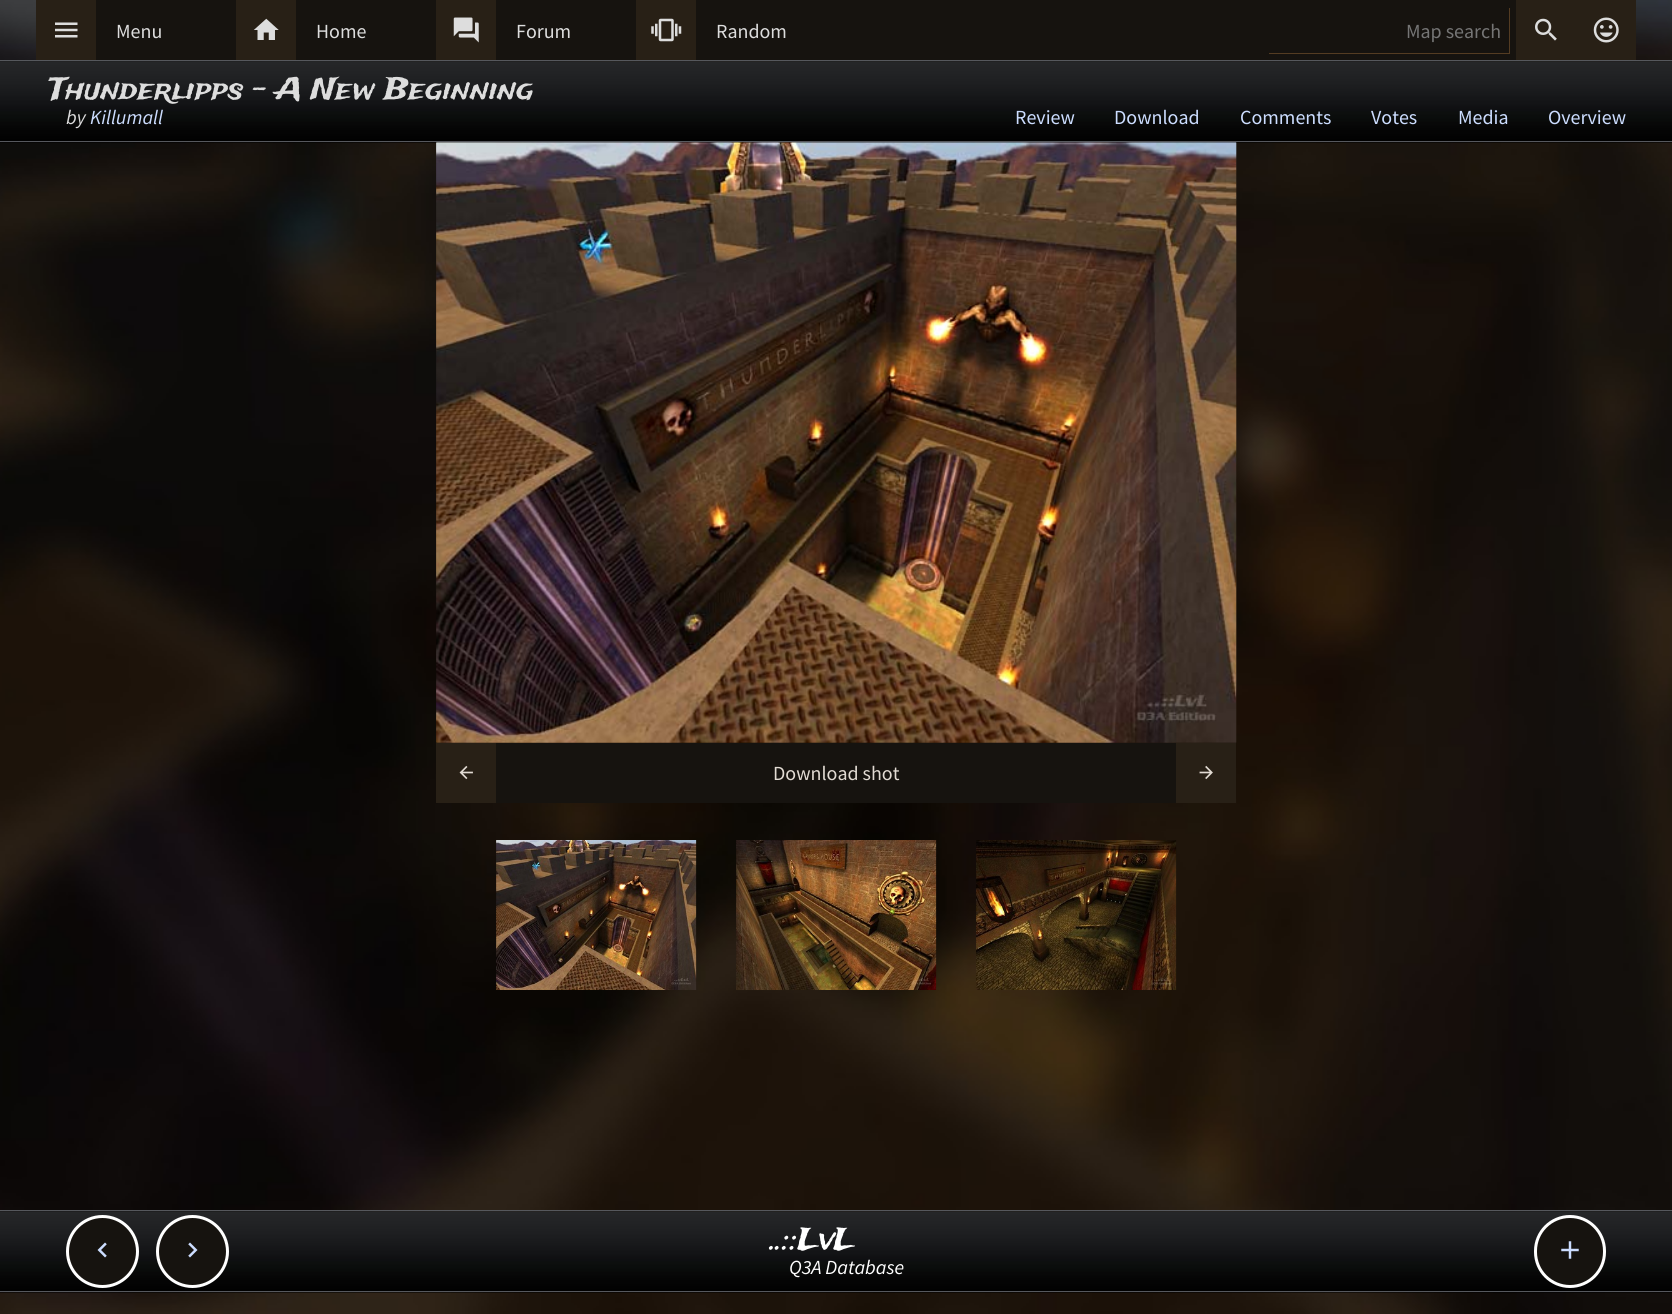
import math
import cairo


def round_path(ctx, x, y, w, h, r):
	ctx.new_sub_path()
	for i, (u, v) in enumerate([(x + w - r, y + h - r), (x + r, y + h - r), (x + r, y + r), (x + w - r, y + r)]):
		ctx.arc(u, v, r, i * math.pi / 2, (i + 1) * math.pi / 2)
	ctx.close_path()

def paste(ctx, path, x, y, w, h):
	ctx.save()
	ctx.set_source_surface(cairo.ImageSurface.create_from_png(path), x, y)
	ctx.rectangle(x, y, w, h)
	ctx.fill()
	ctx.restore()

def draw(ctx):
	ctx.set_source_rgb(1, 1, 1)
	ctx.paint()
	paste(ctx, 'media/1.png', 0, 0, 1672, 1314)
	ctx.set_source_rgb(0.086, 0.075, 0.059)
	ctx.rectangle(96, 0, 1420, 60)
	ctx.fill()
	ctx.set_source_rgb(0.157, 0.125, 0.086)
	ctx.rectangle(36, 0, 60, 60)
	ctx.fill()
	paste(ctx, 'media/2.png', 55, 22, 23, 16)
	ctx.select_font_face('Source Sans Pro')
	ctx.set_font_size(20)
	ctx.set_source_rgb(0.867, 0.867, 0.867)
	ctx.move_to(116, 38)
	ctx.show_text('Menu')
	ctx.set_source_rgb(0.157, 0.125, 0.086)
	ctx.rectangle(236, 0, 60, 60)
	ctx.fill()
	paste(ctx, 'media/3.png', 253, 18, 26, 22)
	ctx.set_source_rgb(0.867, 0.867, 0.867)
	ctx.move_to(316, 38)
	ctx.show_text('Home')
	ctx.set_source_rgb(0.157, 0.125, 0.086)
	ctx.rectangle(436, 0, 60, 60)
	ctx.fill()
	paste(ctx, 'media/4.png', 453, 17, 26, 26)
	ctx.set_source_rgb(0.867, 0.867, 0.867)
	ctx.move_to(516, 38)
	ctx.show_text('Forum')
	ctx.set_source_rgb(0.157, 0.125, 0.086)
	ctx.rectangle(636, 0, 60, 60)
	ctx.fill()
	paste(ctx, 'media/5.png', 651, 18, 31, 24)
	ctx.set_source_rgb(0.867, 0.867, 0.867)
	ctx.move_to(716, 38)
	ctx.show_text('Random')
	ctx.set_source_rgb(0.329, 0.235, 0.133)
	ctx.rectangle(1509, 8, 1, 46)
	ctx.fill()
	ctx.rectangle(1269, 53, 241, 1)
	ctx.fill()
	ctx.set_source_rgb(0.459, 0.459, 0.459)
	ctx.move_to(1406, 38)
	ctx.show_text('Map search')
	ctx.set_source_rgb(0.157, 0.125, 0.086)
	ctx.rectangle(1516, 0, 120, 60)
	ctx.fill()
	paste(ctx, 'media/6.png', 1535, 18, 22, 23)
	paste(ctx, 'media/7.png', 1593, 17, 26, 26)
	paste(ctx, 'media/8.png', 0, 61, 1672, 82)
	ctx.set_source_rgb(0.337, 0.345, 0.365)
	ctx.rectangle(0, 60, 1672, 1)
	ctx.fill()
	ctx.rectangle(0, 141, 1672, 1)
	ctx.fill()
	ctx.select_font_face('Trade Winds')
	ctx.set_font_size(30)
	ctx.set_source_rgb(0.867, 0.867, 0.867)
	ctx.move_to(49, 99)
	ctx.show_text('Thunderlipps - A New Beginning')
	ctx.select_font_face('Source Sans Pro', cairo.FONT_SLANT_ITALIC)
	ctx.set_font_size(20)
	ctx.move_to(66, 124)
	ctx.show_text('by')
	ctx.set_source_rgb(0.8, 0.867, 1)
	ctx.move_to(90, 124)
	ctx.show_text('Killumall')
	ctx.select_font_face('Source Sans Pro')
	for x, y, s in [
		(1015, 124, 'Review'),
		(1114, 124, 'Download'),
		(1240, 124, 'Comments'),
		(1371, 124, 'Votes'),
		(1458, 124, 'Media'),
		(1548, 124, 'Overview'),
	]:
		ctx.move_to(x, y)
		ctx.show_text(s)
	paste(ctx, 'media/9.png', 436, 142, 801, 601)
	paste(ctx, 'media/10.png', 436, 142, 801, 601)
	ctx.set_source_rgb(0.086, 0.075, 0.059)
	ctx.rectangle(496, 743, 680, 60)
	ctx.fill()
	ctx.set_source_rgb(0.157, 0.125, 0.086)
	ctx.rectangle(436, 743, 60, 60)
	ctx.fill()
	paste(ctx, 'media/11.png', 459, 765, 14, 15)
	ctx.set_source_rgb(0.886, 0.859, 0.827)
	ctx.move_to(773, 780)
	ctx.show_text('Download shot')
	ctx.set_source_rgb(0.157, 0.125, 0.086)
	ctx.rectangle(1176, 743, 60, 60)
	ctx.fill()
	paste(ctx, 'media/12.png', 1199, 765, 14, 15)
	paste(ctx, 'media/13.png', 496, 840, 201, 150)
	paste(ctx, 'media/14.png', 736, 840, 201, 150)
	paste(ctx, 'media/15.png', 976, 840, 201, 150)
	paste(ctx, 'media/19.png', 0, 1211, 1672, 82)
	ctx.set_source_rgb(0.086, 0.075, 0.059)
	ctx.arc(102.5, 1251.5, 35, 0, 2 * math.pi)
	ctx.fill_preserve()
	ctx.set_source_rgb(1, 1, 1)
	ctx.set_line_width(3)
	ctx.stroke()
	paste(ctx, 'media/16.png', 97, 1242, 10, 16)
	ctx.set_source_rgb(0.086, 0.075, 0.059)
	ctx.arc(192.5, 1251.5, 35, 0, 2 * math.pi)
	ctx.fill_preserve()
	ctx.set_source_rgb(1, 1, 1)
	ctx.stroke()
	paste(ctx, 'media/17.png', 188, 1242, 10, 16)
	ctx.set_source_rgb(0.086, 0.075, 0.059)
	round_path(ctx, 1535.5, 1216.5, 69, 70, 34.5)
	ctx.fill_preserve()
	ctx.set_source_rgb(1, 1, 1)
	ctx.stroke()
	paste(ctx, 'media/18.png', 1561, 1241, 18, 18)
	ctx.set_source_rgb(0.337, 0.345, 0.365)
	ctx.rectangle(0, 1210, 1672, 1)
	ctx.fill()
	ctx.rectangle(0, 1291, 1672, 1)
	ctx.fill()
	ctx.select_font_face('Trade Winds')
	ctx.set_font_size(30)
	ctx.set_source_rgb(1, 1, 1)
	ctx.move_to(771, 1249)
	ctx.show_text('..::LvL')
	ctx.select_font_face('Source Sans Pro', cairo.FONT_SLANT_ITALIC)
	ctx.set_font_size(20)
	ctx.move_to(789, 1274)
	ctx.show_text('Q3A Database')


surface = cairo.ImageSurface(cairo.FORMAT_RGB24, 1672, 1314)
ctx = cairo.Context(surface)
options = cairo.FontOptions()
options.set_hint_metrics(cairo.HINT_METRICS_OFF)
options.set_hint_style(cairo.HINT_STYLE_NONE)
ctx.set_font_options(options)
ctx.set_miter_limit(4)
draw(ctx)
surface.write_to_png('image.png')
